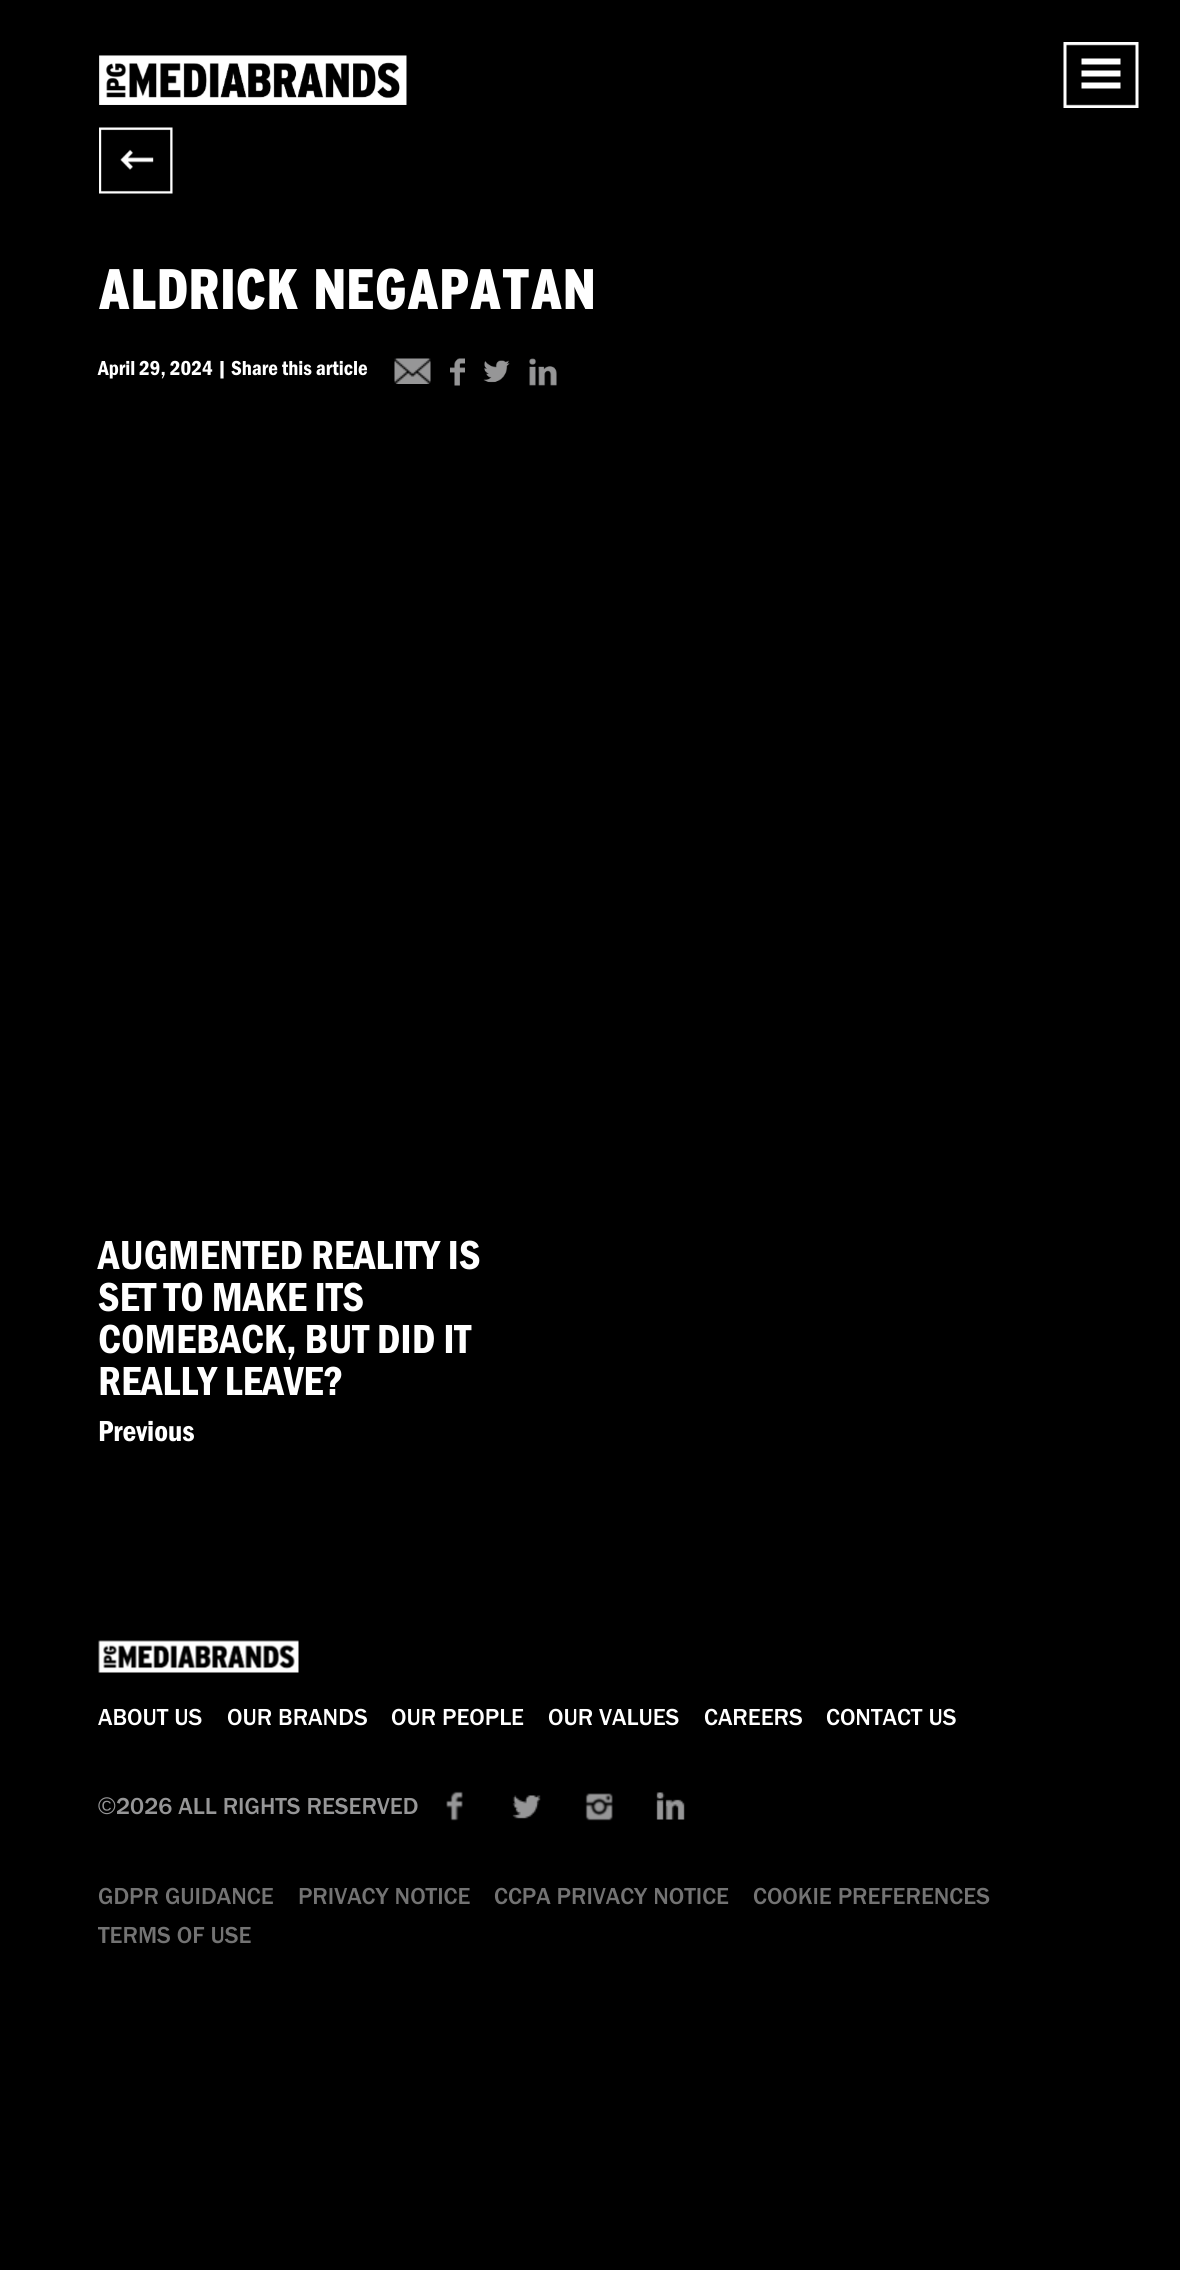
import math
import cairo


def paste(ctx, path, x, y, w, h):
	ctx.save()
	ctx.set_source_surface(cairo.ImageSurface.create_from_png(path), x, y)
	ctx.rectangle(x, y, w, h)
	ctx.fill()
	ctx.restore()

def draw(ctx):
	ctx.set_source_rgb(0, 0, 0)
	ctx.paint()
	paste(ctx, 'media/1.png', 99, 55, 308, 50)
	paste(ctx, 'media/2.png', 1063, 42, 76, 66)
	paste(ctx, 'media/3.png', 99, 127, 74, 67)
	ctx.select_font_face('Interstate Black')
	ctx.set_font_size(57)
	ctx.set_source_rgb(1, 1, 1)
	ctx.move_to(98, 309)
	ctx.show_text('ALDRICK NEGAPATAN')
	ctx.select_font_face('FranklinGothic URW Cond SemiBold')
	ctx.set_font_size(21)
	ctx.move_to(98, 375)
	ctx.show_text('April 29, 2024 | Share this article')
	paste(ctx, 'media/4.png', 394, 358, 37, 26)
	paste(ctx, 'media/5.png', 450, 358, 15, 28)
	paste(ctx, 'media/6.png', 483, 360, 27, 23)
	paste(ctx, 'media/7.png', 529, 358, 28, 28)
	ctx.set_font_size(42)
	for x, y, s in [
		(98, 1269, 'AUGMENTED REALITY IS'),
		(98, 1311, 'SET TO MAKE ITS'),
		(98, 1353, 'COMEBACK, BUT DID IT'),
		(98, 1395, 'REALLY LEAVE?'),
	]:
		ctx.move_to(x, y)
		ctx.show_text(s)
	ctx.set_font_size(30)
	ctx.move_to(98, 1441)
	ctx.show_text('Previous')
	paste(ctx, 'media/8.png', 98, 1640, 201, 33)
	ctx.select_font_face('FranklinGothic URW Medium')
	ctx.set_font_size(24)
	for x, y, s in [
		(98, 1725, 'ABOUT US'),
		(227, 1725, 'OUR BRANDS'),
		(391, 1725, 'OUR PEOPLE'),
		(548, 1725, 'OUR VALUES'),
		(704, 1725, 'CAREERS'),
		(826, 1725, 'CONTACT US'),
	]:
		ctx.move_to(x, y)
		ctx.show_text(s)
	ctx.select_font_face('Liberation Sans')
	ctx.set_source_rgb(0.588, 0.588, 0.592)
	ctx.move_to(98, 1814)
	ctx.show_text('©')
	ctx.select_font_face('FranklinGothic URW Medium')
	ctx.move_to(116, 1814)
	ctx.show_text('2026 ALL RIGHTS RESERVED')
	paste(ctx, 'media/9.png', 446, 1791, 17, 30)
	paste(ctx, 'media/10.png', 512, 1795, 29, 24)
	paste(ctx, 'media/11.png', 585, 1793, 28, 28)
	paste(ctx, 'media/12.png', 656, 1792, 29, 28)
	ctx.set_source_rgb(0.451, 0.451, 0.451)
	for x, y, s in [
		(98, 1904, 'GDPR GUIDANCE'),
		(298, 1904, 'PRIVACY NOTICE'),
		(494, 1904, 'CCPA PRIVACY NOTICE'),
		(753, 1904, 'COOKIE PREFERENCES'),
		(98, 1943, 'TERMS OF USE'),
	]:
		ctx.move_to(x, y)
		ctx.show_text(s)


surface = cairo.ImageSurface(cairo.FORMAT_RGB24, 1180, 2270)
ctx = cairo.Context(surface)
options = cairo.FontOptions()
options.set_hint_metrics(cairo.HINT_METRICS_OFF)
options.set_hint_style(cairo.HINT_STYLE_NONE)
ctx.set_font_options(options)
ctx.set_miter_limit(4)
draw(ctx)
surface.write_to_png('image.png')
